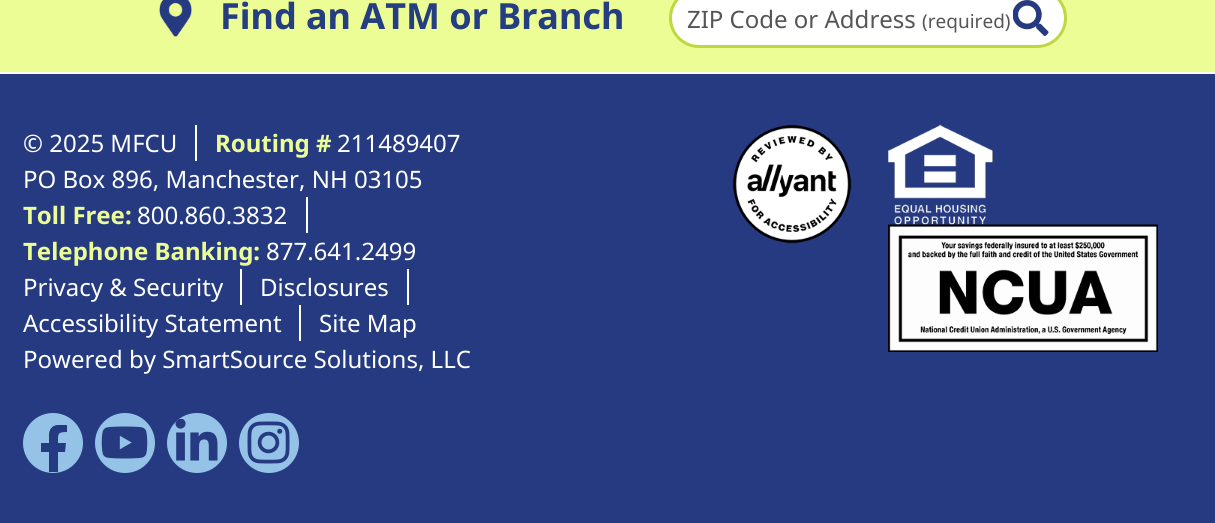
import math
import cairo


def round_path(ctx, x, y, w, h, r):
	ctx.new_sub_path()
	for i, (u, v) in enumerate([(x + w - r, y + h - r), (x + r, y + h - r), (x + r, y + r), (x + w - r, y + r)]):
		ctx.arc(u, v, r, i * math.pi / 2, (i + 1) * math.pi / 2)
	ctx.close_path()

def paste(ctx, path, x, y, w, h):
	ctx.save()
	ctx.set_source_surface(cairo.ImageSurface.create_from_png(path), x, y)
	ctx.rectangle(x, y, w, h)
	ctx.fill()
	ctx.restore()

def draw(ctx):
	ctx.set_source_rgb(0.922, 0.992, 0.584)
	ctx.paint()
	ctx.set_source_rgb(1, 1, 1)
	ctx.rectangle(0, 72, 1215, 2)
	ctx.fill()
	paste(ctx, 'media/1.png', 159, 0, 33, 37)
	ctx.select_font_face('Noto Sans', cairo.FONT_SLANT_NORMAL, cairo.FONT_WEIGHT_BOLD)
	ctx.set_font_size(36)
	ctx.set_source_rgb(0.141, 0.243, 0.506)
	ctx.move_to(220, 29)
	ctx.show_text('Find an ATM or Branch')
	ctx.set_source_rgb(1, 1, 1)
	round_path(ctx, 670.5, -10.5, 395, 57, 28.5)
	ctx.fill_preserve()
	ctx.set_source_rgb(0.749, 0.843, 0.255)
	ctx.set_line_width(3)
	ctx.stroke()
	ctx.select_font_face('Noto Sans')
	ctx.set_font_size(24)
	ctx.set_source_rgb(0.333, 0.333, 0.333)
	ctx.move_to(687, 28)
	ctx.show_text('ZIP Code or Address')
	ctx.set_font_size(19)
	ctx.move_to(922, 28)
	ctx.show_text('(required)')
	paste(ctx, 'media/2.png', 1013, 0, 36, 36)
	ctx.set_source_rgb(0.145, 0.227, 0.502)
	ctx.rectangle(0, 74, 1215, 449)
	ctx.fill()
	ctx.set_source_rgb(1, 1, 1)
	ctx.rectangle(195, 125, 2, 36)
	ctx.fill()
	ctx.set_font_size(24)
	ctx.move_to(23, 152)
	ctx.show_text('© 2025 MFCU')
	ctx.select_font_face('Noto Sans', cairo.FONT_SLANT_NORMAL, cairo.FONT_WEIGHT_BOLD)
	ctx.set_source_rgb(0.922, 0.992, 0.584)
	ctx.move_to(215, 152)
	ctx.show_text('Routing #')
	ctx.select_font_face('Noto Sans')
	ctx.set_source_rgb(1, 1, 1)
	ctx.move_to(337, 152)
	ctx.show_text('211489407')
	ctx.move_to(23, 188)
	ctx.show_text('PO Box 896, Manchester, NH 03105')
	ctx.rectangle(306, 197, 2, 36)
	ctx.fill()
	ctx.select_font_face('Noto Sans', cairo.FONT_SLANT_NORMAL, cairo.FONT_WEIGHT_BOLD)
	ctx.set_source_rgb(0.922, 0.992, 0.584)
	ctx.move_to(23, 224)
	ctx.show_text('Toll Free:')
	ctx.select_font_face('Noto Sans')
	ctx.set_source_rgb(1, 1, 1)
	ctx.move_to(137, 224)
	ctx.show_text('800.860.3832')
	ctx.select_font_face('Noto Sans', cairo.FONT_SLANT_NORMAL, cairo.FONT_WEIGHT_BOLD)
	ctx.set_source_rgb(0.922, 0.992, 0.584)
	ctx.move_to(23, 260)
	ctx.show_text('Telephone Banking:')
	ctx.select_font_face('Noto Sans')
	ctx.set_source_rgb(1, 1, 1)
	ctx.move_to(266, 260)
	ctx.show_text('877.641.2499')
	ctx.rectangle(240, 269, 2, 36)
	ctx.fill()
	ctx.move_to(23, 296)
	ctx.show_text('Privacy & Security')
	ctx.rectangle(407, 269, 2, 36)
	ctx.fill()
	ctx.move_to(260, 296)
	ctx.show_text('Disclosures')
	ctx.rectangle(299, 305, 2, 36)
	ctx.fill()
	for x, y, s in [
		(23, 332, 'Accessibility Statement'),
		(319, 332, 'Site Map'),
		(23, 368, 'Powered by SmartSource Solutions, LLC'),
	]:
		ctx.move_to(x, y)
		ctx.show_text(s)
	ctx.set_source_rgb(0.584, 0.765, 0.906)
	ctx.new_path()
	ctx.arc(53, 443, 30, 0, 2 * math.pi)
	ctx.fill()
	ctx.save()
	ctx.rectangle(30, 425, 48, 48)
	ctx.clip()
	ctx.set_source_rgb(0.145, 0.227, 0.502)
	ctx.new_path()
	ctx.move_to(65, 452)
	ctx.line_to(66, 443)
	ctx.line_to(58, 443)
	ctx.curve_to(58, 434, 57, 432, 67, 432)
	ctx.line_to(67, 425)
	ctx.curve_to(59, 424, 50, 424, 49, 434)
	ctx.line_to(49, 443)
	ctx.line_to(41, 443)
	ctx.line_to(41, 452)
	ctx.line_to(49, 452)
	ctx.line_to(49, 472)
	ctx.line_to(58, 472)
	ctx.line_to(58, 452)
	ctx.close_path()
	ctx.fill()
	ctx.restore()
	ctx.arc(125, 443, 30, 0, 2 * math.pi)
	ctx.fill()
	paste(ctx, 'media/3.png', 101, 426, 47, 33)
	ctx.arc(197, 443, 30, 0, 2 * math.pi)
	ctx.fill()
	paste(ctx, 'media/4.png', 175, 419, 43, 42)
	ctx.arc(269, 443, 30, 0, 2 * math.pi)
	ctx.fill()
	paste(ctx, 'media/5.png', 247, 421, 43, 43)
	paste(ctx, 'media/6.png', 732, 124, 120, 120)
	paste(ctx, 'media/7.png', 888, 124, 105, 101)
	paste(ctx, 'media/8.png', 888, 224, 270, 128)


surface = cairo.ImageSurface(cairo.FORMAT_RGB24, 1215, 523)
ctx = cairo.Context(surface)
options = cairo.FontOptions()
options.set_hint_metrics(cairo.HINT_METRICS_OFF)
options.set_hint_style(cairo.HINT_STYLE_NONE)
ctx.set_font_options(options)
ctx.set_miter_limit(4)
draw(ctx)
surface.write_to_png('image.png')
